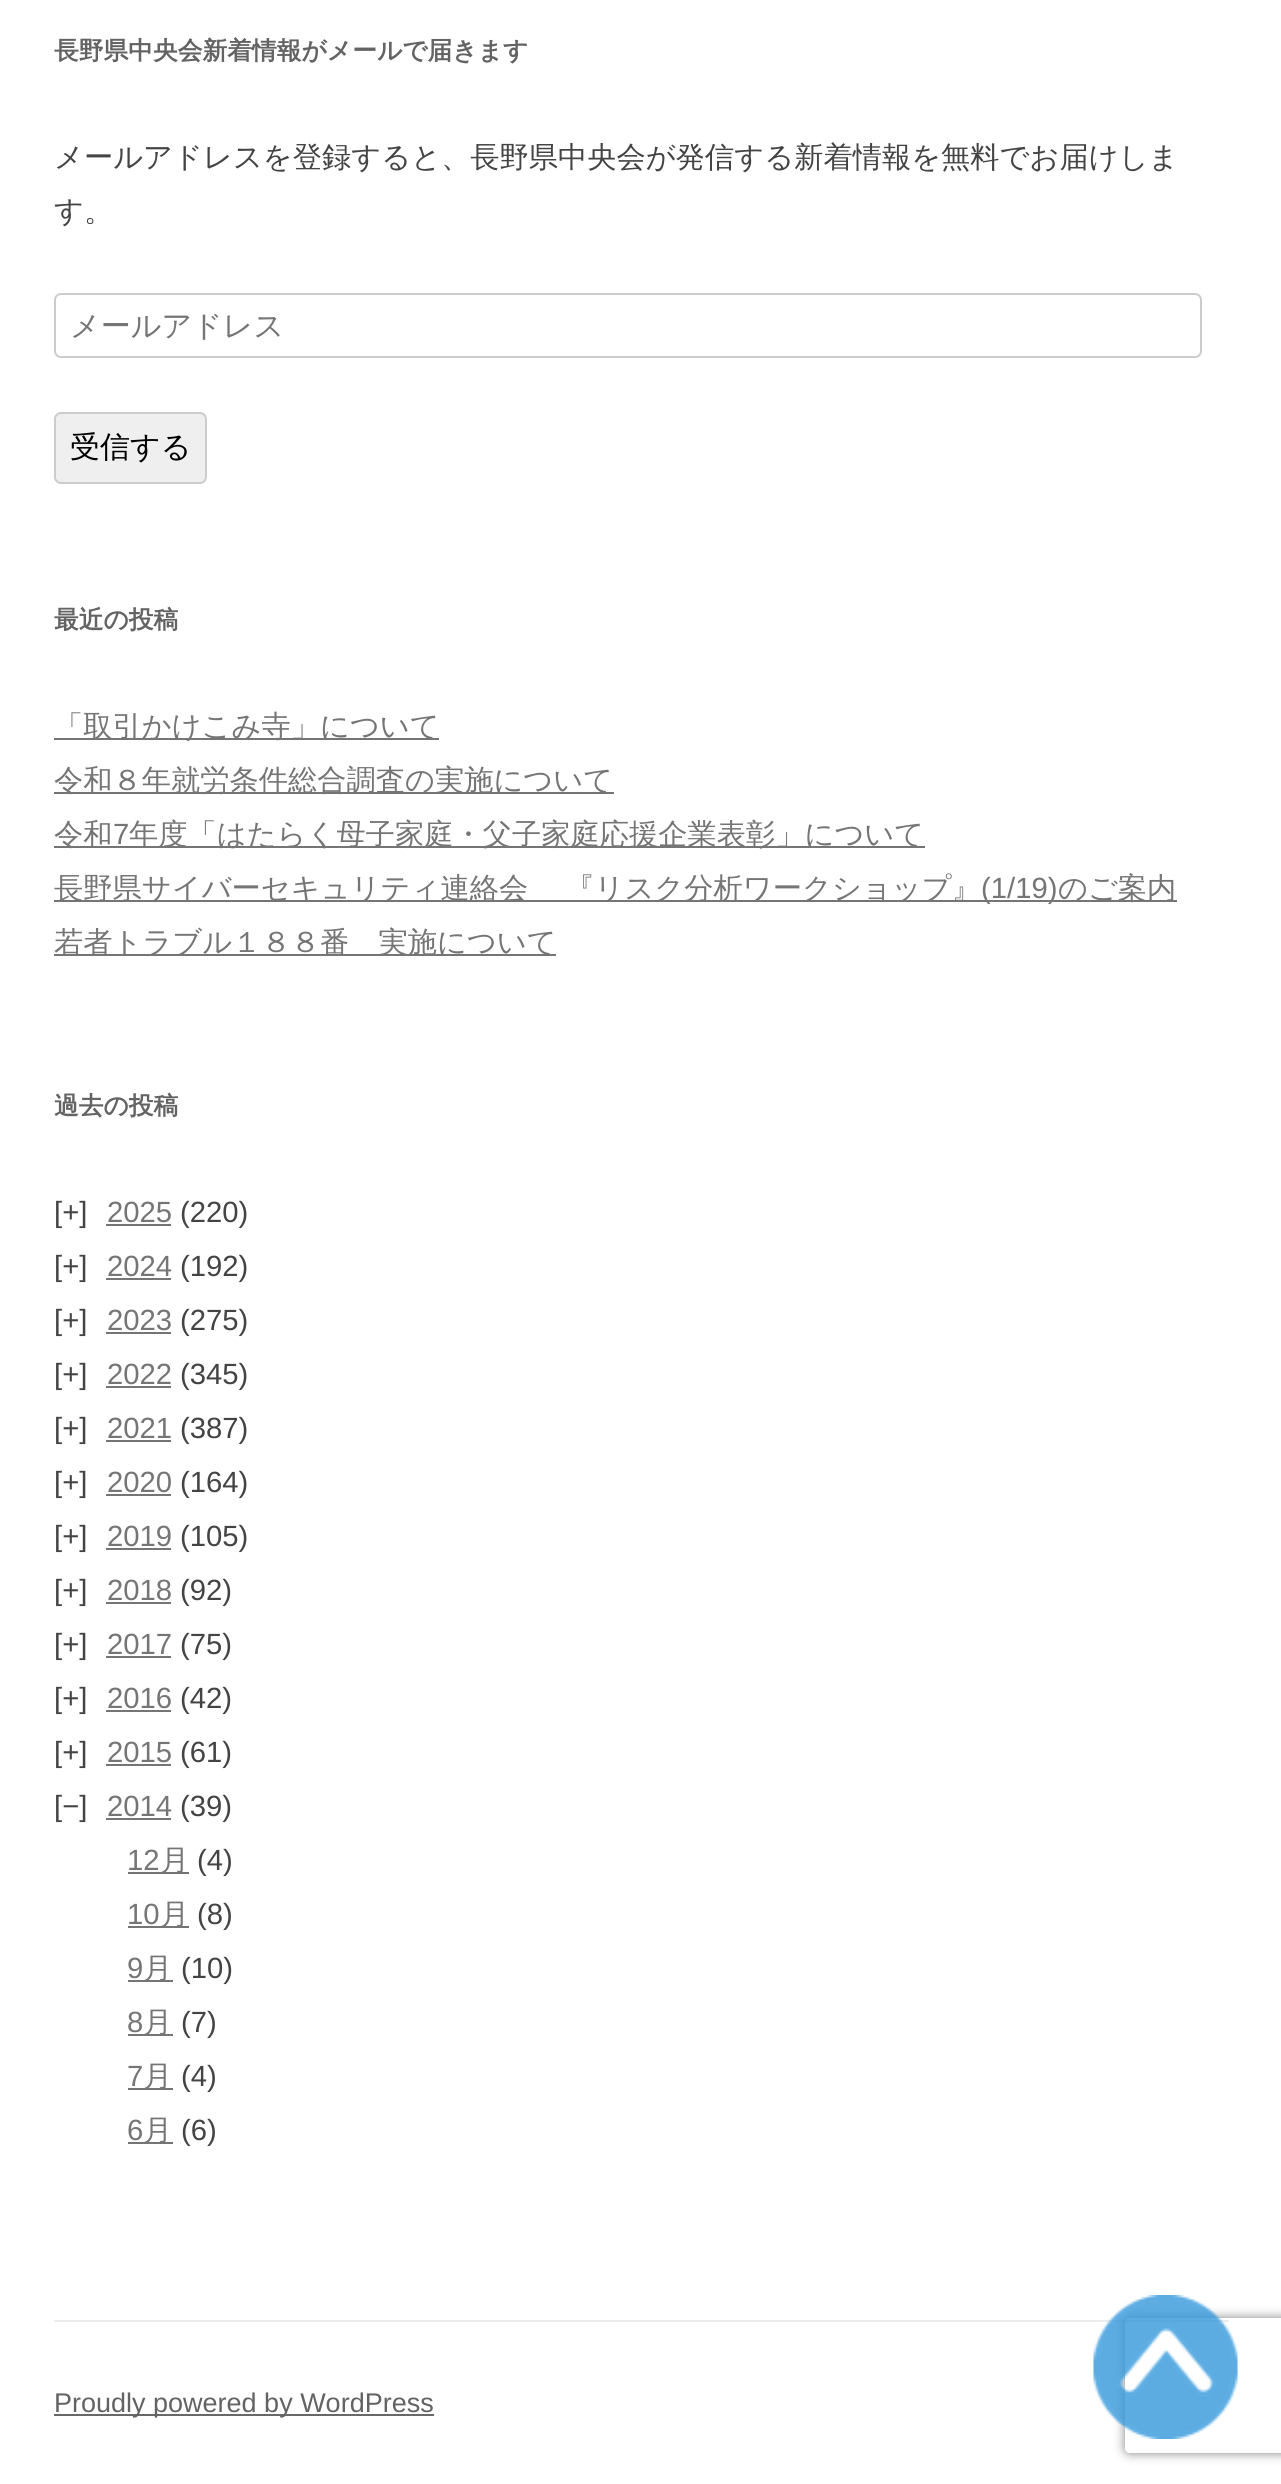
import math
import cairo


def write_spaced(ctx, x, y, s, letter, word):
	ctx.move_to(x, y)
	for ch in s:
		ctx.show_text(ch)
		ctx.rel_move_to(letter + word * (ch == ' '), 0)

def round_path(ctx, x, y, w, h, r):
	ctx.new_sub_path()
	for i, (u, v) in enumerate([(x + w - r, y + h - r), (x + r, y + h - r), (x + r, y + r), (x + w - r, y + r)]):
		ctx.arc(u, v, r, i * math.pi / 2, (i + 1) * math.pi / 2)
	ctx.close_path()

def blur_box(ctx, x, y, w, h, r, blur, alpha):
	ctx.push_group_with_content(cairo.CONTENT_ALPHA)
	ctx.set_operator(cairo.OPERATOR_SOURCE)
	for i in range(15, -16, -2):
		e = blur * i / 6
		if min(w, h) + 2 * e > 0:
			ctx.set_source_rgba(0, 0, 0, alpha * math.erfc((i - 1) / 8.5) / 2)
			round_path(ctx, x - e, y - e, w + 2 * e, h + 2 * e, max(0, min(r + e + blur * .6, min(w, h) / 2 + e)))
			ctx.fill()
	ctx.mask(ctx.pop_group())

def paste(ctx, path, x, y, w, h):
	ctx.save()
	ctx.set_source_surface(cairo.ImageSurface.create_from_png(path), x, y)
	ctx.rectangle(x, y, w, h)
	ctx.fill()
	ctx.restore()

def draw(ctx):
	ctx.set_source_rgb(1, 1, 1)
	ctx.paint()
	ctx.select_font_face('WenQuanYi Zen Hei', cairo.FONT_SLANT_NORMAL, cairo.FONT_WEIGHT_BOLD)
	ctx.set_font_size(24.75)
	ctx.set_source_rgb(0.388, 0.388, 0.388)
	ctx.move_to(54, 59)
	ctx.show_text('長野県中央会新着情報がメールで届きます')
	ctx.select_font_face('WenQuanYi Zen Hei Medium')
	ctx.set_font_size(29.25)
	ctx.set_source_rgb(0.267, 0.267, 0.267)
	ctx.move_to(54, 167)
	ctx.show_text('メールアドレスを登録すると、長野県中央会が発信する新着情報を無料でお届けしま')
	ctx.move_to(54, 221)
	ctx.show_text('す。')
	round_path(ctx, 55, 294, 1146, 63, 6)
	ctx.set_source_rgb(0.8, 0.8, 0.8)
	ctx.stroke()
	ctx.set_font_size(30)
	ctx.set_source_rgb(0.459, 0.459, 0.459)
	ctx.move_to(70, 336)
	ctx.show_text('メールアドレス')
	ctx.set_source_rgb(0.937, 0.937, 0.937)
	round_path(ctx, 55, 413, 151, 70, 6)
	ctx.fill_preserve()
	ctx.set_source_rgb(0.8, 0.8, 0.8)
	ctx.stroke()
	ctx.set_source_rgb(0, 0, 0)
	ctx.move_to(70, 457)
	ctx.show_text('受信する')
	ctx.select_font_face('WenQuanYi Zen Hei', cairo.FONT_SLANT_NORMAL, cairo.FONT_WEIGHT_BOLD)
	ctx.set_font_size(24.75)
	ctx.set_source_rgb(0.388, 0.388, 0.388)
	ctx.move_to(54, 628)
	ctx.show_text('最近の投稿')
	ctx.set_source_rgb(0.459, 0.459, 0.459)
	ctx.rectangle(54, 738, 385, 2)
	ctx.fill()
	ctx.select_font_face('WenQuanYi Zen Hei Medium')
	ctx.set_font_size(29.25)
	ctx.move_to(54, 736)
	ctx.show_text('「取引かけこみ寺」について')
	ctx.rectangle(54, 792, 560, 2)
	ctx.fill()
	ctx.move_to(54, 790)
	ctx.show_text('令和８年就労条件総合調査の実施について')
	ctx.rectangle(54, 846, 871, 2)
	ctx.fill()
	ctx.move_to(54, 844)
	ctx.show_text('令和')
	ctx.select_font_face('Liberation Sans')
	ctx.move_to(113, 844)
	ctx.show_text('7')
	ctx.select_font_face('WenQuanYi Zen Hei Medium')
	ctx.move_to(129, 844)
	ctx.show_text('年度「はたらく母子家庭・父子家庭応援企業表彰」について')
	ctx.rectangle(54, 900, 1123, 2)
	ctx.fill()
	write_spaced(ctx, 54, 898, '長野県サイバーセキュリティ連絡会　 『リスク分析ワークショップ』', 0, -1)
	ctx.select_font_face('Liberation Sans')
	ctx.move_to(981, 898)
	ctx.show_text('(1/19)')
	ctx.select_font_face('WenQuanYi Zen Hei Medium')
	ctx.move_to(1058, 898)
	ctx.show_text('のご案内')
	ctx.rectangle(54, 954, 502, 2)
	ctx.fill()
	ctx.move_to(54, 952)
	ctx.show_text('若者トラブル１８８番　実施について')
	ctx.select_font_face('WenQuanYi Zen Hei', cairo.FONT_SLANT_NORMAL, cairo.FONT_WEIGHT_BOLD)
	ctx.set_font_size(24.75)
	ctx.set_source_rgb(0.388, 0.388, 0.388)
	ctx.move_to(54, 1114)
	ctx.show_text('過去の投稿')
	ctx.select_font_face('Liberation Sans')
	ctx.set_font_size(29.25)
	ctx.set_source_rgb(0.267, 0.267, 0.267)
	ctx.move_to(54, 1222)
	ctx.show_text('[+]')
	ctx.set_source_rgb(0.459, 0.459, 0.459)
	ctx.move_to(107, 1222)
	ctx.show_text('2025')
	ctx.rectangle(106, 1224, 65, 2)
	ctx.fill()
	ctx.set_source_rgb(0.267, 0.267, 0.267)
	ctx.move_to(180, 1222)
	ctx.show_text('(220)')
	ctx.move_to(54, 1276)
	ctx.show_text('[+]')
	ctx.set_source_rgb(0.459, 0.459, 0.459)
	ctx.move_to(107, 1276)
	ctx.show_text('2024')
	ctx.rectangle(106, 1278, 65, 2)
	ctx.fill()
	ctx.set_source_rgb(0.267, 0.267, 0.267)
	ctx.move_to(180, 1276)
	ctx.show_text('(192)')
	ctx.move_to(54, 1330)
	ctx.show_text('[+]')
	ctx.set_source_rgb(0.459, 0.459, 0.459)
	ctx.move_to(107, 1330)
	ctx.show_text('2023')
	ctx.rectangle(106, 1332, 65, 2)
	ctx.fill()
	ctx.set_source_rgb(0.267, 0.267, 0.267)
	ctx.move_to(180, 1330)
	ctx.show_text('(275)')
	ctx.move_to(54, 1384)
	ctx.show_text('[+]')
	ctx.set_source_rgb(0.459, 0.459, 0.459)
	ctx.move_to(107, 1384)
	ctx.show_text('2022')
	ctx.rectangle(106, 1386, 65, 2)
	ctx.fill()
	ctx.set_source_rgb(0.267, 0.267, 0.267)
	ctx.move_to(180, 1384)
	ctx.show_text('(345)')
	ctx.move_to(54, 1438)
	ctx.show_text('[+]')
	ctx.set_source_rgb(0.459, 0.459, 0.459)
	ctx.move_to(107, 1438)
	ctx.show_text('2021')
	ctx.rectangle(106, 1440, 65, 2)
	ctx.fill()
	ctx.set_source_rgb(0.267, 0.267, 0.267)
	ctx.move_to(180, 1438)
	ctx.show_text('(387)')
	ctx.move_to(54, 1492)
	ctx.show_text('[+]')
	ctx.set_source_rgb(0.459, 0.459, 0.459)
	ctx.move_to(107, 1492)
	ctx.show_text('2020')
	ctx.rectangle(106, 1494, 65, 2)
	ctx.fill()
	ctx.set_source_rgb(0.267, 0.267, 0.267)
	ctx.move_to(180, 1492)
	ctx.show_text('(164)')
	ctx.move_to(54, 1546)
	ctx.show_text('[+]')
	ctx.set_source_rgb(0.459, 0.459, 0.459)
	ctx.move_to(107, 1546)
	ctx.show_text('2019')
	ctx.rectangle(106, 1548, 65, 2)
	ctx.fill()
	ctx.set_source_rgb(0.267, 0.267, 0.267)
	ctx.move_to(180, 1546)
	ctx.show_text('(105)')
	ctx.move_to(54, 1600)
	ctx.show_text('[+]')
	ctx.set_source_rgb(0.459, 0.459, 0.459)
	ctx.move_to(107, 1600)
	ctx.show_text('2018')
	ctx.rectangle(106, 1602, 65, 2)
	ctx.fill()
	ctx.set_source_rgb(0.267, 0.267, 0.267)
	ctx.move_to(180, 1600)
	ctx.show_text('(92)')
	ctx.move_to(54, 1654)
	ctx.show_text('[+]')
	ctx.set_source_rgb(0.459, 0.459, 0.459)
	ctx.move_to(107, 1654)
	ctx.show_text('2017')
	ctx.rectangle(106, 1656, 65, 2)
	ctx.fill()
	ctx.set_source_rgb(0.267, 0.267, 0.267)
	ctx.move_to(180, 1654)
	ctx.show_text('(75)')
	ctx.move_to(54, 1708)
	ctx.show_text('[+]')
	ctx.set_source_rgb(0.459, 0.459, 0.459)
	ctx.move_to(107, 1708)
	ctx.show_text('2016')
	ctx.rectangle(106, 1710, 65, 2)
	ctx.fill()
	ctx.set_source_rgb(0.267, 0.267, 0.267)
	ctx.move_to(180, 1708)
	ctx.show_text('(42)')
	ctx.move_to(54, 1762)
	ctx.show_text('[+]')
	ctx.set_source_rgb(0.459, 0.459, 0.459)
	ctx.move_to(107, 1762)
	ctx.show_text('2015')
	ctx.rectangle(106, 1764, 65, 2)
	ctx.fill()
	ctx.set_source_rgb(0.267, 0.267, 0.267)
	ctx.move_to(180, 1762)
	ctx.show_text('(61)')
	ctx.move_to(54, 1816)
	ctx.show_text('[−]')
	ctx.set_source_rgb(0.459, 0.459, 0.459)
	ctx.move_to(107, 1816)
	ctx.show_text('2014')
	ctx.rectangle(106, 1818, 65, 2)
	ctx.fill()
	ctx.set_source_rgb(0.267, 0.267, 0.267)
	ctx.move_to(180, 1816)
	ctx.show_text('(39)')
	ctx.set_source_rgb(0.459, 0.459, 0.459)
	ctx.move_to(127, 1870)
	ctx.show_text('12')
	ctx.rectangle(128, 1872, 61, 2)
	ctx.fill()
	ctx.select_font_face('WenQuanYi Zen Hei Medium')
	ctx.move_to(160, 1870)
	ctx.show_text('月')
	ctx.select_font_face('Liberation Sans')
	ctx.set_source_rgb(0.267, 0.267, 0.267)
	ctx.move_to(197, 1870)
	ctx.show_text('(4)')
	ctx.set_source_rgb(0.459, 0.459, 0.459)
	ctx.move_to(127, 1924)
	ctx.show_text('10')
	ctx.rectangle(128, 1926, 61, 2)
	ctx.fill()
	ctx.select_font_face('WenQuanYi Zen Hei Medium')
	ctx.move_to(160, 1924)
	ctx.show_text('月')
	ctx.select_font_face('Liberation Sans')
	ctx.set_source_rgb(0.267, 0.267, 0.267)
	ctx.move_to(197, 1924)
	ctx.show_text('(8)')
	ctx.set_source_rgb(0.459, 0.459, 0.459)
	ctx.move_to(127, 1978)
	ctx.show_text('9')
	ctx.rectangle(128, 1980, 45, 2)
	ctx.fill()
	ctx.select_font_face('WenQuanYi Zen Hei Medium')
	ctx.move_to(143, 1978)
	ctx.show_text('月')
	ctx.select_font_face('Liberation Sans')
	ctx.set_source_rgb(0.267, 0.267, 0.267)
	ctx.move_to(181, 1978)
	ctx.show_text('(10)')
	ctx.set_source_rgb(0.459, 0.459, 0.459)
	ctx.move_to(127, 2032)
	ctx.show_text('8')
	ctx.rectangle(128, 2034, 45, 2)
	ctx.fill()
	ctx.select_font_face('WenQuanYi Zen Hei Medium')
	ctx.move_to(143, 2032)
	ctx.show_text('月')
	ctx.select_font_face('Liberation Sans')
	ctx.set_source_rgb(0.267, 0.267, 0.267)
	ctx.move_to(181, 2032)
	ctx.show_text('(7)')
	ctx.set_source_rgb(0.459, 0.459, 0.459)
	ctx.move_to(127, 2086)
	ctx.show_text('7')
	ctx.rectangle(128, 2088, 45, 2)
	ctx.fill()
	ctx.select_font_face('WenQuanYi Zen Hei Medium')
	ctx.move_to(143, 2086)
	ctx.show_text('月')
	ctx.select_font_face('Liberation Sans')
	ctx.set_source_rgb(0.267, 0.267, 0.267)
	ctx.move_to(181, 2086)
	ctx.show_text('(4)')
	ctx.set_source_rgb(0.459, 0.459, 0.459)
	ctx.move_to(127, 2140)
	ctx.show_text('6')
	ctx.rectangle(128, 2142, 45, 2)
	ctx.fill()
	ctx.select_font_face('WenQuanYi Zen Hei Medium')
	ctx.move_to(143, 2140)
	ctx.show_text('月')
	ctx.select_font_face('Liberation Sans')
	ctx.set_source_rgb(0.267, 0.267, 0.267)
	ctx.move_to(181, 2140)
	ctx.show_text('(6)')
	ctx.set_source_rgb(0.929, 0.929, 0.929)
	ctx.rectangle(54, 2320, 1175, 2)
	ctx.fill()
	ctx.set_source_rgb(0.408, 0.408, 0.408)
	ctx.rectangle(54, 2414, 380, 2)
	ctx.fill()
	ctx.set_font_size(27)
	ctx.set_source_rgb(0.388, 0.388, 0.388)
	ctx.move_to(54, 2412)
	ctx.show_text('Proudly powered by WordPress')
	ctx.save()
	ctx.set_fill_rule(cairo.FILL_RULE_EVEN_ODD)
	ctx.new_path()
	ctx.move_to(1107, 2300)
	ctx.line_to(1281, 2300)
	ctx.line_to(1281, 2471)
	ctx.line_to(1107, 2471)
	ctx.close_path()
	ctx.move_to(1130, 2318)
	ctx.line_to(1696, 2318)
	ctx.curve_to(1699, 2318, 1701, 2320, 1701, 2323)
	ctx.line_to(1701, 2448)
	ctx.curve_to(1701, 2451, 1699, 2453, 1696, 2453)
	ctx.line_to(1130, 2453)
	ctx.curve_to(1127, 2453, 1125, 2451, 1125, 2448)
	ctx.line_to(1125, 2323)
	ctx.curve_to(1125, 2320, 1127, 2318, 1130, 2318)
	ctx.close_path()
	ctx.clip()
	ctx.set_source_rgb(0.502, 0.502, 0.502)
	blur_box(ctx, 1125, 2318, 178, 135, 5, 5.5, 1)
	ctx.restore()
	paste(ctx, 'media/1.png', 1093, 2295, 145, 144)


surface = cairo.ImageSurface(cairo.FORMAT_RGB24, 1281, 2484)
ctx = cairo.Context(surface)
options = cairo.FontOptions()
options.set_hint_metrics(cairo.HINT_METRICS_OFF)
options.set_hint_style(cairo.HINT_STYLE_NONE)
ctx.set_font_options(options)
ctx.set_miter_limit(4)
draw(ctx)
surface.write_to_png('image.png')
